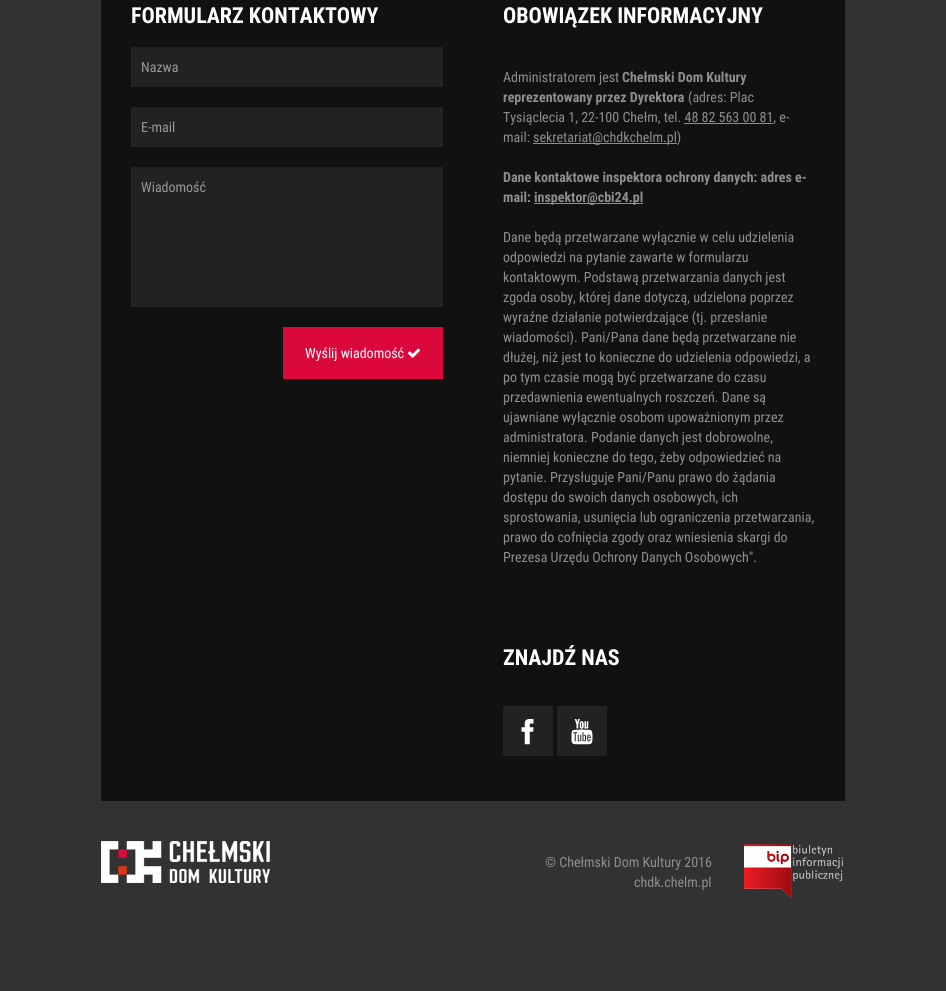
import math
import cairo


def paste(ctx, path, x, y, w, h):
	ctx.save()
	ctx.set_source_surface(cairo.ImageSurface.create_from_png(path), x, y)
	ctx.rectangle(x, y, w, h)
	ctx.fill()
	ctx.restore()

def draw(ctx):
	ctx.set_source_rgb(0.196, 0.196, 0.196)
	ctx.paint()
	ctx.set_source_rgb(0.067, 0.067, 0.067)
	ctx.rectangle(101, 0, 744, 801)
	ctx.fill()
	ctx.select_font_face('Roboto Condensed', cairo.FONT_SLANT_NORMAL, cairo.FONT_WEIGHT_BOLD)
	ctx.set_font_size(22)
	ctx.set_source_rgb(1, 1, 1)
	ctx.move_to(131, 23)
	ctx.show_text('FORMULARZ KONTAKTOWY')
	ctx.set_source_rgb(0.133, 0.133, 0.133)
	ctx.rectangle(131, 48, 312, 39)
	ctx.fill()
	ctx.set_source_rgb(0.122, 0.122, 0.122)
	ctx.rectangle(131, 47, 312, 1)
	ctx.fill()
	ctx.select_font_face('Roboto Condensed')
	ctx.set_font_size(14)
	ctx.set_source_rgb(0.6, 0.6, 0.6)
	ctx.move_to(141, 72)
	ctx.show_text('Nazwa')
	ctx.set_source_rgb(0.133, 0.133, 0.133)
	ctx.rectangle(131, 108, 312, 39)
	ctx.fill()
	ctx.set_source_rgb(0.122, 0.122, 0.122)
	ctx.rectangle(131, 107, 312, 1)
	ctx.fill()
	ctx.set_source_rgb(0.6, 0.6, 0.6)
	ctx.move_to(141, 132)
	ctx.show_text('E-mail')
	ctx.set_source_rgb(0.133, 0.133, 0.133)
	ctx.rectangle(131, 168, 312, 139)
	ctx.fill()
	ctx.set_source_rgb(0.122, 0.122, 0.122)
	ctx.rectangle(131, 167, 312, 1)
	ctx.fill()
	ctx.set_source_rgb(0.6, 0.6, 0.6)
	ctx.move_to(141, 192)
	ctx.show_text('Wiadomość')
	ctx.set_source_rgb(0.855, 0.035, 0.231)
	ctx.rectangle(283, 327, 160, 52)
	ctx.fill()
	ctx.set_source_rgb(1, 1, 1)
	ctx.move_to(305, 358)
	ctx.show_text('Wyślij wiadomość')
	paste(ctx, 'media/1.png', 408, 348, 12, 10)
	ctx.select_font_face('Roboto Condensed', cairo.FONT_SLANT_NORMAL, cairo.FONT_WEIGHT_BOLD)
	ctx.set_font_size(22)
	ctx.move_to(503, 23)
	ctx.show_text('OBOWIĄZEK INFORMACYJNY')
	ctx.select_font_face('Roboto Condensed')
	ctx.set_font_size(14)
	ctx.set_source_rgb(0.549, 0.557, 0.565)
	ctx.move_to(503, 82)
	ctx.show_text('Administratorem jest')
	ctx.select_font_face('Roboto Condensed', cairo.FONT_SLANT_NORMAL, cairo.FONT_WEIGHT_BOLD)
	ctx.move_to(622, 82)
	ctx.show_text('Chełmski Dom Kultury')
	ctx.move_to(503, 102)
	ctx.show_text('reprezentowany przez Dyrektora')
	ctx.select_font_face('Roboto Condensed')
	ctx.move_to(688, 102)
	ctx.show_text('(adres: Plac')
	ctx.move_to(503, 122)
	ctx.show_text('Tysiąclecia 1, 22-100 Chełm, tel. 48 82 563 00 81, e-')
	ctx.rectangle(684, 123, 89, 1)
	ctx.fill()
	ctx.move_to(503, 142)
	ctx.show_text('mail:')
	ctx.rectangle(533, 143, 144, 1)
	ctx.fill()
	ctx.move_to(533, 142)
	ctx.show_text('sekretariat@chdkchelm.pl)')
	ctx.select_font_face('Roboto Condensed', cairo.FONT_SLANT_NORMAL, cairo.FONT_WEIGHT_BOLD)
	ctx.move_to(503, 182)
	ctx.show_text('Dane kontaktowe inspektora ochrony danych: adres e-')
	ctx.move_to(503, 202)
	ctx.show_text('mail:')
	ctx.rectangle(534, 203, 109, 1)
	ctx.fill()
	ctx.move_to(534, 202)
	ctx.show_text('inspektor@cbi24.pl')
	ctx.select_font_face('Roboto Condensed')
	for x, y, s in [
		(503, 242, 'Dane będą przetwarzane wyłącznie w celu udzielenia'),
		(503, 262, 'odpowiedzi na pytanie zawarte w formularzu'),
		(503, 282, 'kontaktowym. Podstawą przetwarzania danych jest'),
		(503, 302, 'zgoda osoby, której dane dotyczą, udzielona poprzez'),
		(503, 322, 'wyraźne działanie potwierdzające (tj. przesłanie'),
		(503, 342, 'wiadomości). Pani/Pana dane będą przetwarzane nie'),
		(503, 362, 'dłużej, niż jest to konieczne do udzielenia odpowiedzi, a'),
		(503, 382, 'po tym czasie mogą być przetwarzane do czasu'),
		(503, 402, 'przedawnienia ewentualnych roszczeń. Dane są'),
		(503, 422, 'ujawniane wyłącznie osobom upoważnionym przez'),
		(503, 442, 'administratora. Podanie danych jest dobrowolne,'),
		(503, 462, 'niemniej konieczne do tego, żeby odpowiedzieć na'),
		(503, 482, 'pytanie. Przysługuje Pani/Panu prawo do żądania'),
		(503, 502, 'dostępu do swoich danych osobowych, ich'),
		(503, 522, 'sprostowania, usunięcia lub ograniczenia przetwarzania,'),
		(503, 542, 'prawo do cofnięcia zgody oraz wniesienia skargi do'),
		(503, 562, 'Prezesa Urzędu Ochrony Danych Osobowych".'),
	]:
		ctx.move_to(x, y)
		ctx.show_text(s)
	ctx.select_font_face('Roboto Condensed', cairo.FONT_SLANT_NORMAL, cairo.FONT_WEIGHT_BOLD)
	ctx.set_font_size(22)
	ctx.set_source_rgb(1, 1, 1)
	ctx.move_to(503, 665)
	ctx.show_text('ZNAJDŹ NAS')
	ctx.set_source_rgb(0.133, 0.133, 0.133)
	ctx.rectangle(503, 706, 50, 50)
	ctx.fill()
	paste(ctx, 'media/2.png', 521, 719, 13, 26)
	ctx.rectangle(557, 706, 50, 50)
	ctx.fill()
	paste(ctx, 'media/3.png', 571, 719, 22, 26)
	paste(ctx, 'media/4.png', 101, 841, 169, 42)
	ctx.select_font_face('Roboto Condensed')
	ctx.set_font_size(14)
	ctx.set_source_rgb(0.549, 0.557, 0.565)
	ctx.move_to(545, 867)
	ctx.show_text('© Chełmski Dom Kultury 2016')
	ctx.move_to(634, 887)
	ctx.show_text('chdk.chelm.pl')
	paste(ctx, 'media/5.png', 744, 844, 99, 55)


surface = cairo.ImageSurface(cairo.FORMAT_RGB24, 946, 991)
ctx = cairo.Context(surface)
options = cairo.FontOptions()
options.set_hint_metrics(cairo.HINT_METRICS_OFF)
options.set_hint_style(cairo.HINT_STYLE_NONE)
ctx.set_font_options(options)
ctx.set_miter_limit(4)
draw(ctx)
surface.write_to_png('image.png')
